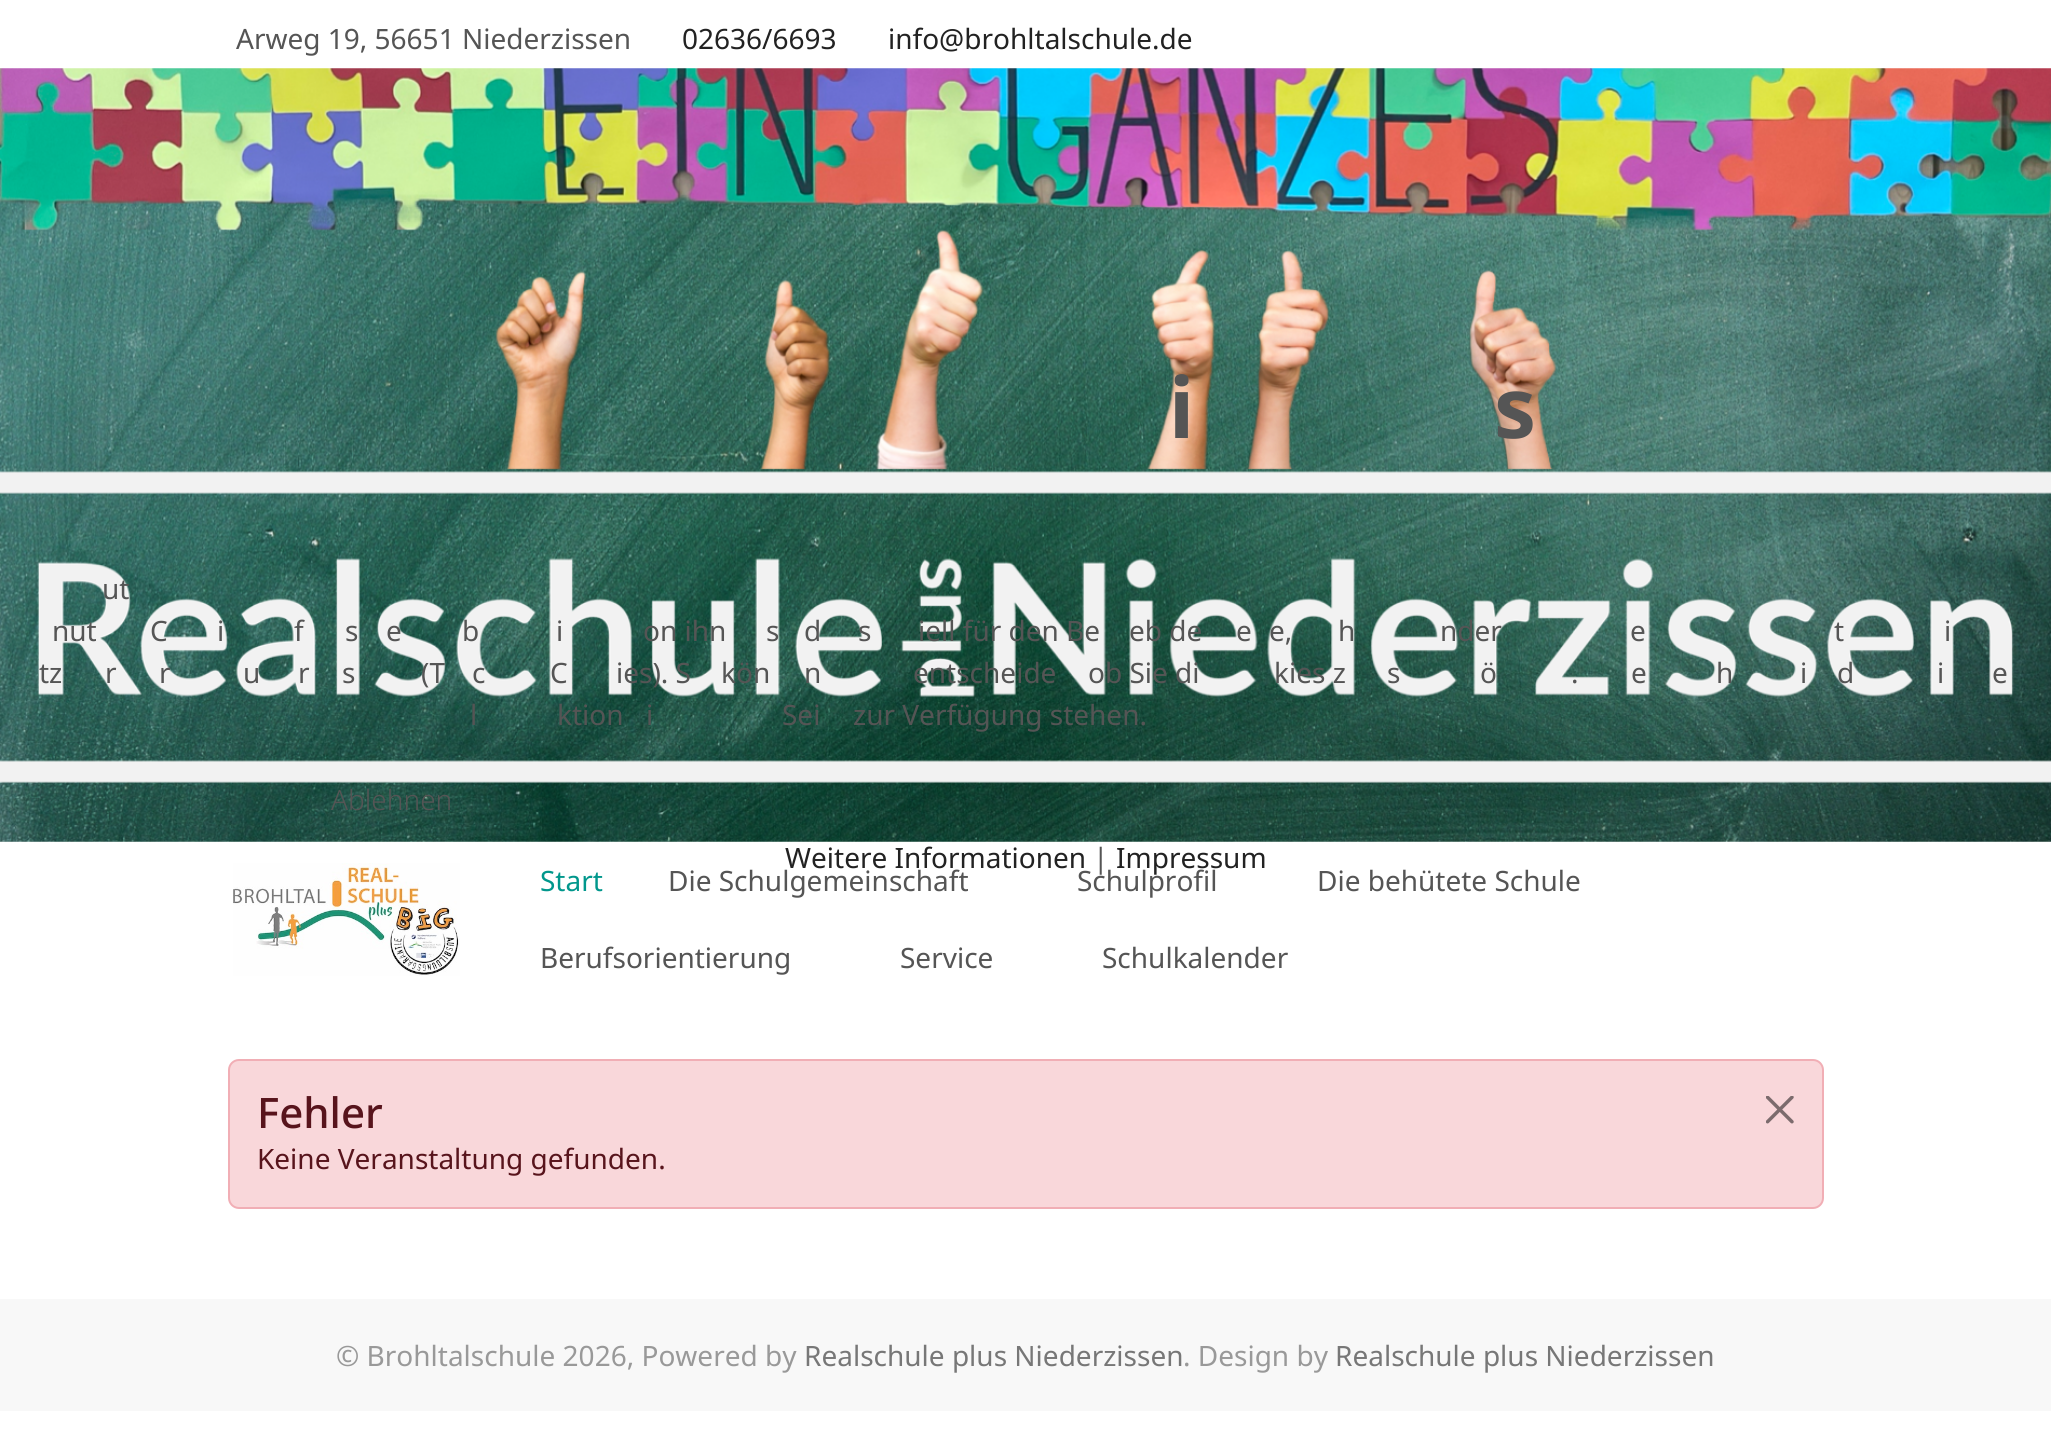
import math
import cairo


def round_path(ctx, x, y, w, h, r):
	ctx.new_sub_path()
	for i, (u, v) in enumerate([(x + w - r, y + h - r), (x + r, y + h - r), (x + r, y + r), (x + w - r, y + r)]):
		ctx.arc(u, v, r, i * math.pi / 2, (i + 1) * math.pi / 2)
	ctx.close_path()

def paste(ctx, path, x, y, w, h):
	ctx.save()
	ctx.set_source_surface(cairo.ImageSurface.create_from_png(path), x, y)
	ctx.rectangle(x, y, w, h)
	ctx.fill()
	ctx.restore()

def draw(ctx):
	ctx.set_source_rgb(1, 1, 1)
	ctx.paint()
	ctx.select_font_face('Noto Sans')
	ctx.set_font_size(28)
	ctx.set_source_rgb(0.333, 0.333, 0.333)
	ctx.move_to(236, 49)
	ctx.show_text('Arweg 19, 56651 Niederzissen')
	ctx.set_source_rgb(0.133, 0.133, 0.133)
	ctx.move_to(682, 49)
	ctx.show_text('02636/6693')
	ctx.move_to(888, 49)
	ctx.show_text('info@brohltalschule.de')
	paste(ctx, 'media/1.png', 0, 68, 2051, 774)
	ctx.select_font_face('Noto Sans', cairo.FONT_SLANT_NORMAL, cairo.FONT_WEIGHT_BOLD)
	ctx.set_font_size(84)
	ctx.set_source_rgb(0.333, 0.333, 0.333)
	ctx.move_to(1169, 438)
	ctx.show_text('i')
	ctx.move_to(1494, 438)
	ctx.show_text('s')
	paste(ctx, 'media/2.png', 233, 863, 227, 113)
	ctx.select_font_face('Noto Sans')
	ctx.set_font_size(28)
	ctx.set_source_rgb(0.004, 0.592, 0.549)
	ctx.move_to(540, 891)
	ctx.show_text('Start')
	ctx.set_source_rgb(0.333, 0.333, 0.333)
	for x, y, s in [
		(668, 891, 'Die Schulgemeinschaft'),
		(1077, 891, 'Schulprofil'),
		(1317, 891, 'Die behütete Schule'),
		(540, 968, 'Berufsorientierung'),
		(900, 968, 'Service'),
		(1102, 968, 'Schulkalender'),
	]:
		ctx.move_to(x, y)
		ctx.show_text(s)
	ctx.set_source_rgb(0.973, 0.843, 0.855)
	round_path(ctx, 229, 1060, 1594, 148, 10)
	ctx.fill_preserve()
	ctx.set_source_rgb(0.945, 0.682, 0.71)
	ctx.stroke()
	ctx.select_font_face('Noto Sans Medium')
	ctx.set_font_size(42)
	ctx.set_source_rgb(0.345, 0.082, 0.11)
	ctx.move_to(257, 1128)
	ctx.show_text('Fehler')
	paste(ctx, 'media/3.png', 1766, 1096, 28, 28)
	ctx.select_font_face('Noto Sans')
	ctx.set_font_size(28)
	ctx.move_to(257, 1169)
	ctx.show_text('Keine Veranstaltung gefunden.')
	ctx.set_source_rgb(0.969, 0.969, 0.969)
	ctx.rectangle(0, 1299, 2051, 112)
	ctx.fill()
	ctx.set_source_rgb(0.6, 0.6, 0.6)
	ctx.move_to(336, 1366)
	ctx.show_text('© Brohltalschule 2026, Powered by')
	ctx.set_source_rgb(0.467, 0.467, 0.467)
	ctx.move_to(804, 1366)
	ctx.show_text('Realschule plus Niederzissen')
	ctx.set_source_rgb(0.6, 0.6, 0.6)
	ctx.move_to(1183, 1366)
	ctx.show_text('. Design by')
	ctx.set_source_rgb(0.467, 0.467, 0.467)
	ctx.move_to(1335, 1366)
	ctx.show_text('Realschule plus Niederzissen')
	ctx.set_source_rgb(0.333, 0.333, 0.333)
	for x, y, s in [
		(102, 599, 'ut'),
		(52, 641, 'nut'),
		(150, 641, 'C'),
		(217, 641, 'i'),
		(294, 641, 'f'),
		(345, 641, 's'),
		(386, 641, 'e'),
		(462, 641, 'b'),
		(556, 641, 'i'),
		(643, 641, 'on ihn'),
		(766, 641, 's'),
		(804, 641, 'd'),
		(858, 641, 's'),
		(918, 641, 'iell für den Be'),
		(1129, 641, 'eb de'),
		(1236, 641, 'e'),
		(1269, 641, 'e,'),
		(1338, 641, 'h'),
		(1440, 641, 'nder'),
		(1630, 641, 'e'),
		(1834, 641, 't'),
		(1944, 641, 'i'),
		(39, 683, 'tz'),
		(105, 683, 'r'),
		(159, 683, 'r'),
		(243, 683, 'u'),
		(298, 683, 'r'),
		(342, 683, 's'),
		(421, 683, '(T'),
		(472, 683, 'c'),
		(550, 683, 'C'),
		(616, 683, 'ies). S'),
		(721, 683, 'kön'),
		(804, 683, 'n'),
		(913, 683, 'entscheide'),
		(1088, 683, 'ob Sie di'),
		(1274, 683, 'kies z'),
		(1387, 683, 's'),
		(1480, 683, 'ö'),
		(1571, 683, '.'),
		(1631, 683, 'e'),
		(1716, 683, 'h'),
		(1800, 683, 'i'),
		(1837, 683, 'd'),
		(1937, 683, 'i'),
		(1992, 683, 'e'),
		(470, 725, 'l'),
		(557, 725, 'ktion'),
		(646, 725, 'i'),
		(782, 725, 'Sei'),
		(853, 725, 'zur Verfügung stehen.'),
	]:
		ctx.move_to(x, y)
		ctx.show_text(s)
	ctx.select_font_face('Noto Sans Light')
	ctx.move_to(331, 810)
	ctx.show_text('Ablehnen')
	ctx.select_font_face('Noto Sans')
	ctx.set_source_rgb(0.133, 0.133, 0.133)
	ctx.move_to(785, 868)
	ctx.show_text('Weitere Informationen')
	ctx.set_source_rgb(0.333, 0.333, 0.333)
	ctx.move_to(1093, 868)
	ctx.show_text('|')
	ctx.set_source_rgb(0.133, 0.133, 0.133)
	ctx.move_to(1116, 868)
	ctx.show_text('Impressum')


surface = cairo.ImageSurface(cairo.FORMAT_RGB24, 2051, 1445)
ctx = cairo.Context(surface)
options = cairo.FontOptions()
options.set_hint_metrics(cairo.HINT_METRICS_OFF)
options.set_hint_style(cairo.HINT_STYLE_NONE)
ctx.set_font_options(options)
ctx.set_miter_limit(4)
draw(ctx)
surface.write_to_png('image.png')
